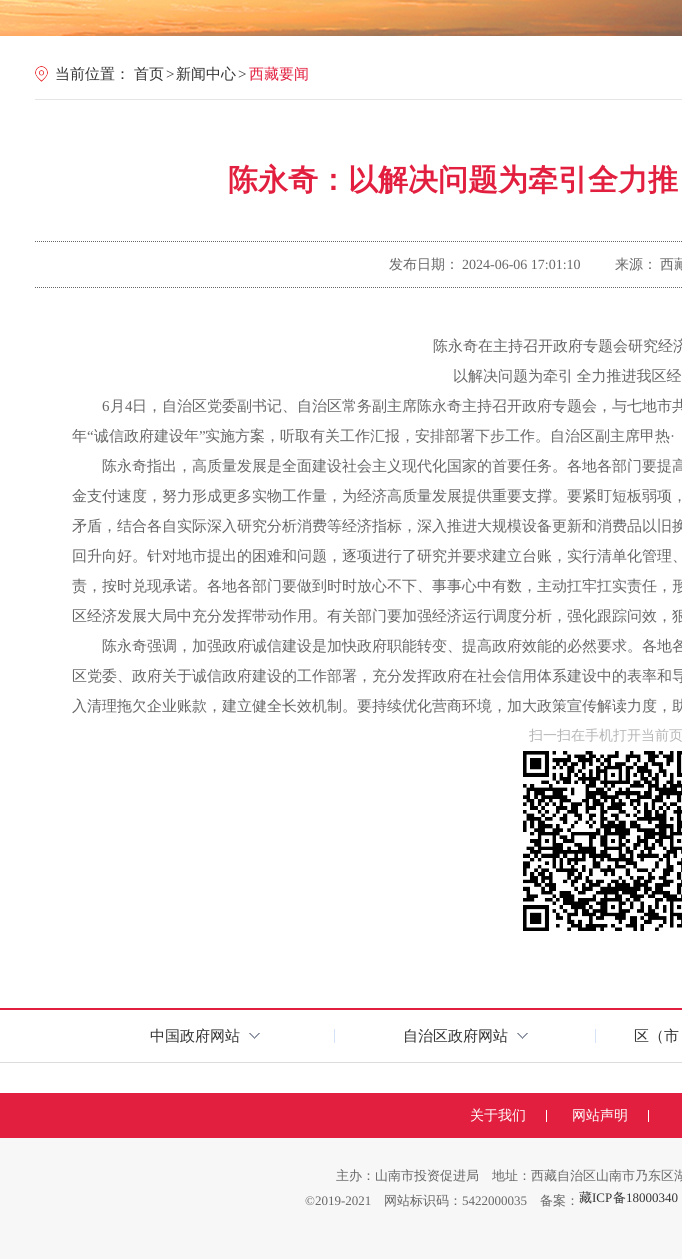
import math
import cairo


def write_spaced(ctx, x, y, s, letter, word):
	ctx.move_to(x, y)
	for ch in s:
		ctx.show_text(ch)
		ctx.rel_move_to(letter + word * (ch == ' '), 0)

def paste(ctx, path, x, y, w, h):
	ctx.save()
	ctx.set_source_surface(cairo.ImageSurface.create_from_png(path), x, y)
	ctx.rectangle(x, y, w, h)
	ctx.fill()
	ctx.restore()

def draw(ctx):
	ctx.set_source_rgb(1, 1, 1)
	ctx.paint()
	paste(ctx, 'media/1.png', 0, 0, 682, 36)
	paste(ctx, 'media/2.png', 35, 66, 13, 16)
	ctx.select_font_face('WenQuanYi Zen Hei Medium')
	ctx.set_font_size(15)
	ctx.set_source_rgb(0.2, 0.2, 0.2)
	ctx.move_to(55, 79)
	ctx.show_text('当前位置：')
	ctx.move_to(134, 79)
	ctx.show_text('首页')
	ctx.select_font_face('Liberation Serif')
	ctx.move_to(166, 79)
	ctx.show_text('>')
	ctx.select_font_face('WenQuanYi Zen Hei Medium')
	ctx.move_to(176, 79)
	ctx.show_text('新闻中心')
	ctx.select_font_face('Liberation Serif')
	ctx.move_to(238, 79)
	ctx.show_text('>')
	ctx.select_font_face('WenQuanYi Zen Hei Medium')
	ctx.set_source_rgb(0.886, 0.122, 0.247)
	ctx.move_to(249, 79)
	ctx.show_text('西藏要闻')
	ctx.set_source_rgb(0.898, 0.898, 0.898)
	ctx.rectangle(35, 99, 647, 1)
	ctx.fill()
	ctx.new_path()
	ctx.move_to(35, 241.5)
	ctx.line_to(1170, 241.5)
	ctx.set_source_rgb(0.4, 0.4, 0.4)
	ctx.set_line_width(1)
	ctx.set_dash([1, 1])
	ctx.stroke()
	ctx.select_font_face('WenQuanYi Zen Hei', cairo.FONT_SLANT_NORMAL, cairo.FONT_WEIGHT_BOLD)
	ctx.set_font_size(30)
	ctx.set_source_rgb(0.886, 0.122, 0.247)
	ctx.move_to(228, 190)
	ctx.show_text('陈永奇：以解决问题为牵引全力推')
	ctx.new_path()
	ctx.move_to(35, 287.5)
	ctx.line_to(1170, 287.5)
	ctx.set_source_rgb(0.4, 0.4, 0.4)
	ctx.stroke()
	ctx.select_font_face('WenQuanYi Zen Hei Medium')
	ctx.set_font_size(14)
	ctx.move_to(389, 269)
	ctx.show_text('发布日期：')
	ctx.select_font_face('Liberation Serif')
	ctx.move_to(462, 269)
	ctx.show_text('2024-06-06 17:01:10')
	ctx.select_font_face('WenQuanYi Zen Hei Medium')
	ctx.move_to(615, 269)
	ctx.show_text('来源：')
	ctx.move_to(660, 269)
	ctx.show_text('西藏')
	ctx.set_font_size(15)
	ctx.move_to(433, 351)
	ctx.show_text('陈永奇在主持召开政府专题会研究经济')
	write_spaced(ctx, 453, 381, '以解决问题为牵引 全力推进我区经', 0, -1)
	ctx.select_font_face('Liberation Serif')
	ctx.move_to(102, 411)
	ctx.show_text('6')
	ctx.select_font_face('WenQuanYi Zen Hei Medium')
	ctx.move_to(110, 411)
	ctx.show_text('月')
	ctx.select_font_face('Liberation Serif')
	ctx.move_to(125, 411)
	ctx.show_text('4')
	ctx.select_font_face('WenQuanYi Zen Hei Medium')
	ctx.move_to(132, 411)
	ctx.show_text('日，自治区党委副书记、自治区常务副主席陈永奇主持召开政府专题会，与七地市共')
	ctx.move_to(72, 441)
	ctx.show_text('年')
	ctx.select_font_face('Liberation Serif')
	ctx.move_to(87, 441)
	ctx.show_text('“')
	ctx.select_font_face('WenQuanYi Zen Hei Medium')
	ctx.move_to(94, 441)
	ctx.show_text('诚信政府建设年')
	ctx.select_font_face('Liberation Serif')
	ctx.move_to(199, 441)
	ctx.show_text('”')
	ctx.select_font_face('WenQuanYi Zen Hei Medium')
	ctx.move_to(205, 441)
	ctx.show_text('实施方案，听取有关工作汇报，安排部署下步工作。自治区副主席甲热')
	ctx.select_font_face('Liberation Serif')
	ctx.move_to(670, 441)
	ctx.show_text('·')
	ctx.select_font_face('WenQuanYi Zen Hei Medium')
	for x, y, s in [
		(102, 471, '陈永奇指出，高质量发展是全面建设社会主义现代化国家的首要任务。各地各部门要提高'),
		(72, 501, '金支付速度，努力形成更多实物工作量，为经济高质量发展提供重要支撑。要紧盯短板弱项，'),
		(72, 531, '矛盾，结合各自实际深入研究分析消费等经济指标，深入推进大规模设备更新和消费品以旧换'),
		(72, 561, '回升向好。针对地市提出的困难和问题，逐项进行了研究并要求建立台账，实行清单化管理、'),
		(72, 591, '责，按时兑现承诺。各地各部门要做到时时放心不下、事事心中有数，主动扛牢扛实责任，形'),
		(72, 621, '区经济发展大局中充分发挥带动作用。有关部门要加强经济运行调度分析，强化跟踪问效，狠'),
		(102, 651, '陈永奇强调，加强政府诚信建设是加快政府职能转变、提高政府效能的必然要求。各地各'),
		(72, 681, '区党委、政府关于诚信政府建设的工作部署，充分发挥政府在社会信用体系建设中的表率和导'),
		(72, 711, '入清理拖欠企业账款，建立健全长效机制。要持续优化营商环境，加大政策宣传解读力度，助'),
	]:
		ctx.move_to(x, y)
		ctx.show_text(s)
	ctx.set_font_size(14)
	ctx.set_source_rgb(0.71, 0.71, 0.71)
	ctx.move_to(529, 740)
	ctx.show_text('扫一扫在手机打开当前页')
	paste(ctx, 'media/3.png', 523, 751, 159, 180)
	ctx.set_source_rgb(0.886, 0.122, 0.247)
	ctx.rectangle(0, 1008, 682, 2)
	ctx.fill()
	ctx.set_source_rgb(0.863, 0.863, 0.863)
	ctx.rectangle(0, 1062, 682, 1)
	ctx.fill()
	ctx.set_source_rgb(0.831, 0.89, 0.961)
	ctx.rectangle(334, 1029, 1, 14)
	ctx.fill()
	ctx.set_font_size(15)
	ctx.set_source_rgb(0.2, 0.2, 0.2)
	ctx.move_to(150, 1041)
	ctx.show_text('中国政府网站')
	paste(ctx, 'media/4.png', 249, 1033, 11, 6)
	ctx.set_source_rgb(0.831, 0.89, 0.961)
	ctx.rectangle(595, 1029, 1, 14)
	ctx.fill()
	ctx.set_source_rgb(0.2, 0.2, 0.2)
	ctx.move_to(403, 1041)
	ctx.show_text('自治区政府网站')
	paste(ctx, 'media/4.png', 517, 1033, 11, 6)
	ctx.move_to(634, 1041)
	ctx.show_text('区（市')
	ctx.set_source_rgb(0.965, 0.965, 0.965)
	ctx.rectangle(0, 1138, 682, 121)
	ctx.fill()
	ctx.set_source_rgb(0.886, 0.122, 0.247)
	ctx.rectangle(0, 1093, 682, 45)
	ctx.fill()
	ctx.set_font_size(14)
	ctx.set_source_rgb(1, 1, 1)
	ctx.move_to(470, 1120)
	ctx.show_text('关于我们')
	ctx.rectangle(546, 1110, 1, 12)
	ctx.fill()
	ctx.move_to(572, 1120)
	ctx.show_text('网站声明')
	ctx.rectangle(648, 1110, 1, 12)
	ctx.fill()
	ctx.set_font_size(13)
	ctx.set_source_rgb(0.4, 0.4, 0.4)
	ctx.move_to(336, 1180)
	ctx.show_text('主办：山南市投资促进局')
	ctx.move_to(492, 1180)
	ctx.show_text('地址：西藏自治区山南市乃东区湖')
	ctx.select_font_face('Liberation Serif')
	ctx.move_to(305, 1205)
	ctx.show_text('©2019-2021')
	ctx.select_font_face('WenQuanYi Zen Hei Medium')
	ctx.move_to(384, 1205)
	ctx.show_text('网站标识码：')
	ctx.select_font_face('Liberation Serif')
	ctx.move_to(462, 1205)
	ctx.show_text('5422000035')
	ctx.select_font_face('WenQuanYi Zen Hei Medium')
	ctx.move_to(540, 1205)
	ctx.show_text('备案：')
	ctx.set_source_rgb(0.2, 0.2, 0.2)
	ctx.move_to(579, 1202)
	ctx.show_text('藏')
	ctx.select_font_face('Liberation Serif')
	ctx.move_to(592, 1202)
	ctx.show_text('ICP')
	ctx.select_font_face('WenQuanYi Zen Hei Medium')
	ctx.move_to(613, 1202)
	ctx.show_text('备')
	ctx.select_font_face('Liberation Serif')
	ctx.move_to(626, 1202)
	ctx.show_text('18000340')


surface = cairo.ImageSurface(cairo.FORMAT_RGB24, 682, 1260)
ctx = cairo.Context(surface)
options = cairo.FontOptions()
options.set_hint_metrics(cairo.HINT_METRICS_OFF)
options.set_hint_style(cairo.HINT_STYLE_NONE)
ctx.set_font_options(options)
ctx.set_miter_limit(4)
draw(ctx)
surface.write_to_png('image.png')
